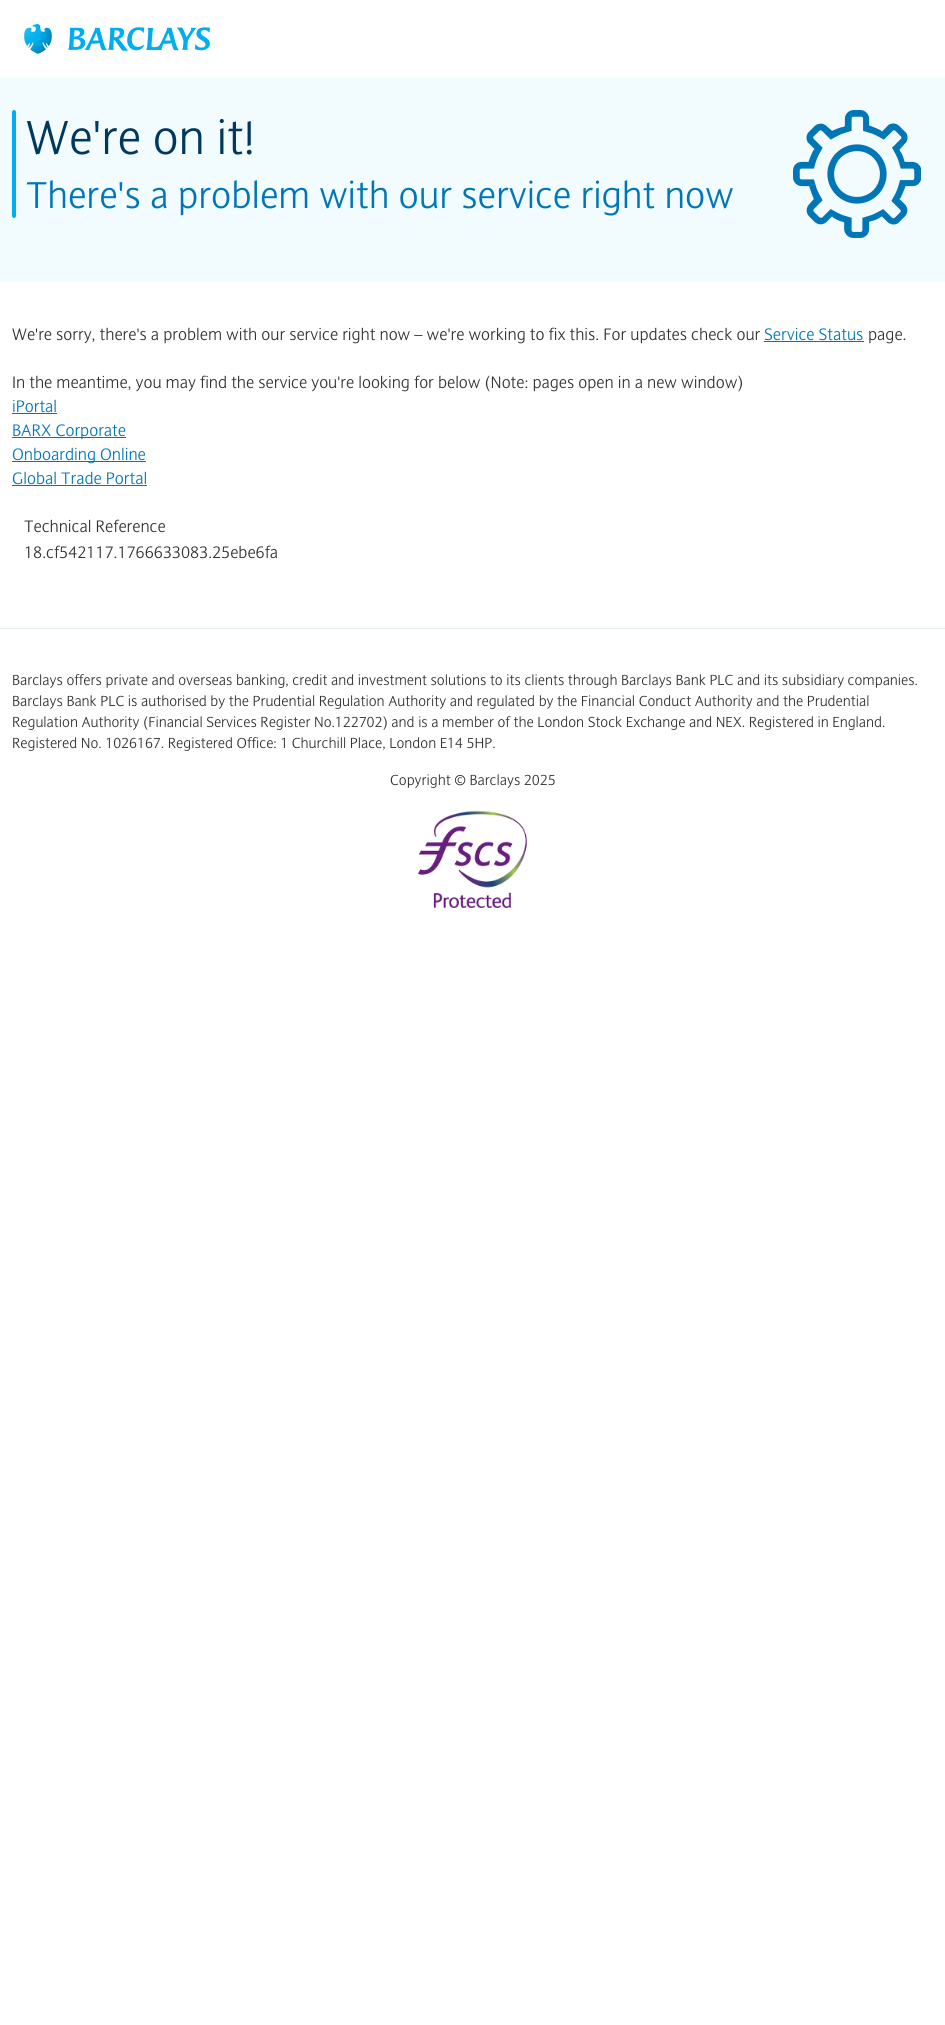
import math
import cairo


def round_path(ctx, x, y, w, h, r):
	ctx.new_sub_path()
	for i, (u, v) in enumerate([(x + w - r, y + h - r), (x + r, y + h - r), (x + r, y + r), (x + w - r, y + r)]):
		ctx.arc(u, v, r, i * math.pi / 2, (i + 1) * math.pi / 2)
	ctx.close_path()

def paste(ctx, path, x, y, w, h):
	ctx.save()
	ctx.set_source_surface(cairo.ImageSurface.create_from_png(path), x, y)
	ctx.rectangle(x, y, w, h)
	ctx.fill()
	ctx.restore()

def draw(ctx):
	ctx.set_source_rgb(1, 1, 1)
	ctx.paint()
	paste(ctx, 'media/1.png', 24, 24, 28, 30)
	paste(ctx, 'media/2.png', 68, 27, 142, 24)
	ctx.set_source_rgb(0.949, 0.984, 0.996)
	ctx.rectangle(0, 78, 945, 204)
	ctx.fill()
	ctx.set_source_rgb(0, 0.682, 0.937)
	round_path(ctx, 12, 110, 4, 108, 2)
	ctx.fill()
	ctx.select_font_face('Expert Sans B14 Light')
	ctx.set_font_size(46)
	ctx.set_source_rgb(0, 0.224, 0.365)
	ctx.move_to(26, 154)
	ctx.show_text('We\'re on it!')
	ctx.set_font_size(36)
	ctx.set_source_rgb(0, 0.463, 0.714)
	ctx.move_to(26, 208)
	ctx.show_text('There\'s a problem with our service right now')
	paste(ctx, 'media/3.png', 793, 110, 128, 128)
	ctx.set_font_size(16)
	ctx.set_source_rgb(0.2, 0.2, 0.2)
	ctx.move_to(12, 340)
	ctx.show_text('We\'re sorry, there\'s a problem with our service right now – we\'re working to fix this. For updates check our')
	ctx.set_source_rgb(0, 0.463, 0.714)
	ctx.move_to(764, 340)
	ctx.show_text('Service Status')
	ctx.rectangle(764, 341, 100, 1)
	ctx.fill()
	ctx.set_source_rgb(0.2, 0.2, 0.2)
	ctx.move_to(868, 340)
	ctx.show_text('page.')
	ctx.move_to(12, 388)
	ctx.show_text('In the meantime, you may find the service you\'re looking for below (Note: pages open in a new window)')
	ctx.set_source_rgb(0, 0.463, 0.714)
	ctx.move_to(12, 412)
	ctx.show_text('iPortal')
	ctx.rectangle(12, 413, 45, 1)
	ctx.fill()
	ctx.rectangle(12, 437, 114, 1)
	ctx.fill()
	ctx.move_to(12, 436)
	ctx.show_text('BARX Corporate')
	ctx.rectangle(12, 461, 134, 1)
	ctx.fill()
	ctx.move_to(12, 460)
	ctx.show_text('Onboarding Online')
	ctx.move_to(12, 484)
	ctx.show_text('Global Trade Portal')
	ctx.rectangle(12, 485, 135, 1)
	ctx.fill()
	ctx.set_source_rgb(0.2, 0.2, 0.2)
	ctx.move_to(24, 532)
	ctx.show_text('Technical Reference')
	ctx.move_to(24, 558)
	ctx.show_text('18.cf542117.1766633083.25ebe6fa')
	ctx.set_source_rgb(0.898, 0.922, 0.933)
	ctx.rectangle(0, 628, 945, 1)
	ctx.fill()
	ctx.set_font_size(14)
	ctx.set_source_rgb(0.2, 0.2, 0.2)
	for x, y, s in [
		(12, 685, 'Barclays offers private and overseas banking, credit and investment solutions to its clients through Barclays Bank PLC and its subsidiary companies.'),
		(12, 706, 'Barclays Bank PLC is authorised by the Prudential Regulation Authority and regulated by the Financial Conduct Authority and the Prudential'),
		(12, 727, 'Regulation Authority (Financial Services Register No.122702) and is a member of the London Stock Exchange and NEX. Registered in England.'),
		(12, 748, 'Registered No. 1026167. Registered Office: 1 Churchill Place, London E14 5HP.'),
		(390, 785, 'Copyright © Barclays 2025'),
	]:
		ctx.move_to(x, y)
		ctx.show_text(s)
	paste(ctx, 'media/4.png', 417, 810, 110, 98)


surface = cairo.ImageSurface(cairo.FORMAT_RGB24, 945, 2025)
ctx = cairo.Context(surface)
options = cairo.FontOptions()
options.set_hint_metrics(cairo.HINT_METRICS_OFF)
options.set_hint_style(cairo.HINT_STYLE_NONE)
ctx.set_font_options(options)
ctx.set_miter_limit(4)
draw(ctx)
surface.write_to_png('image.png')
